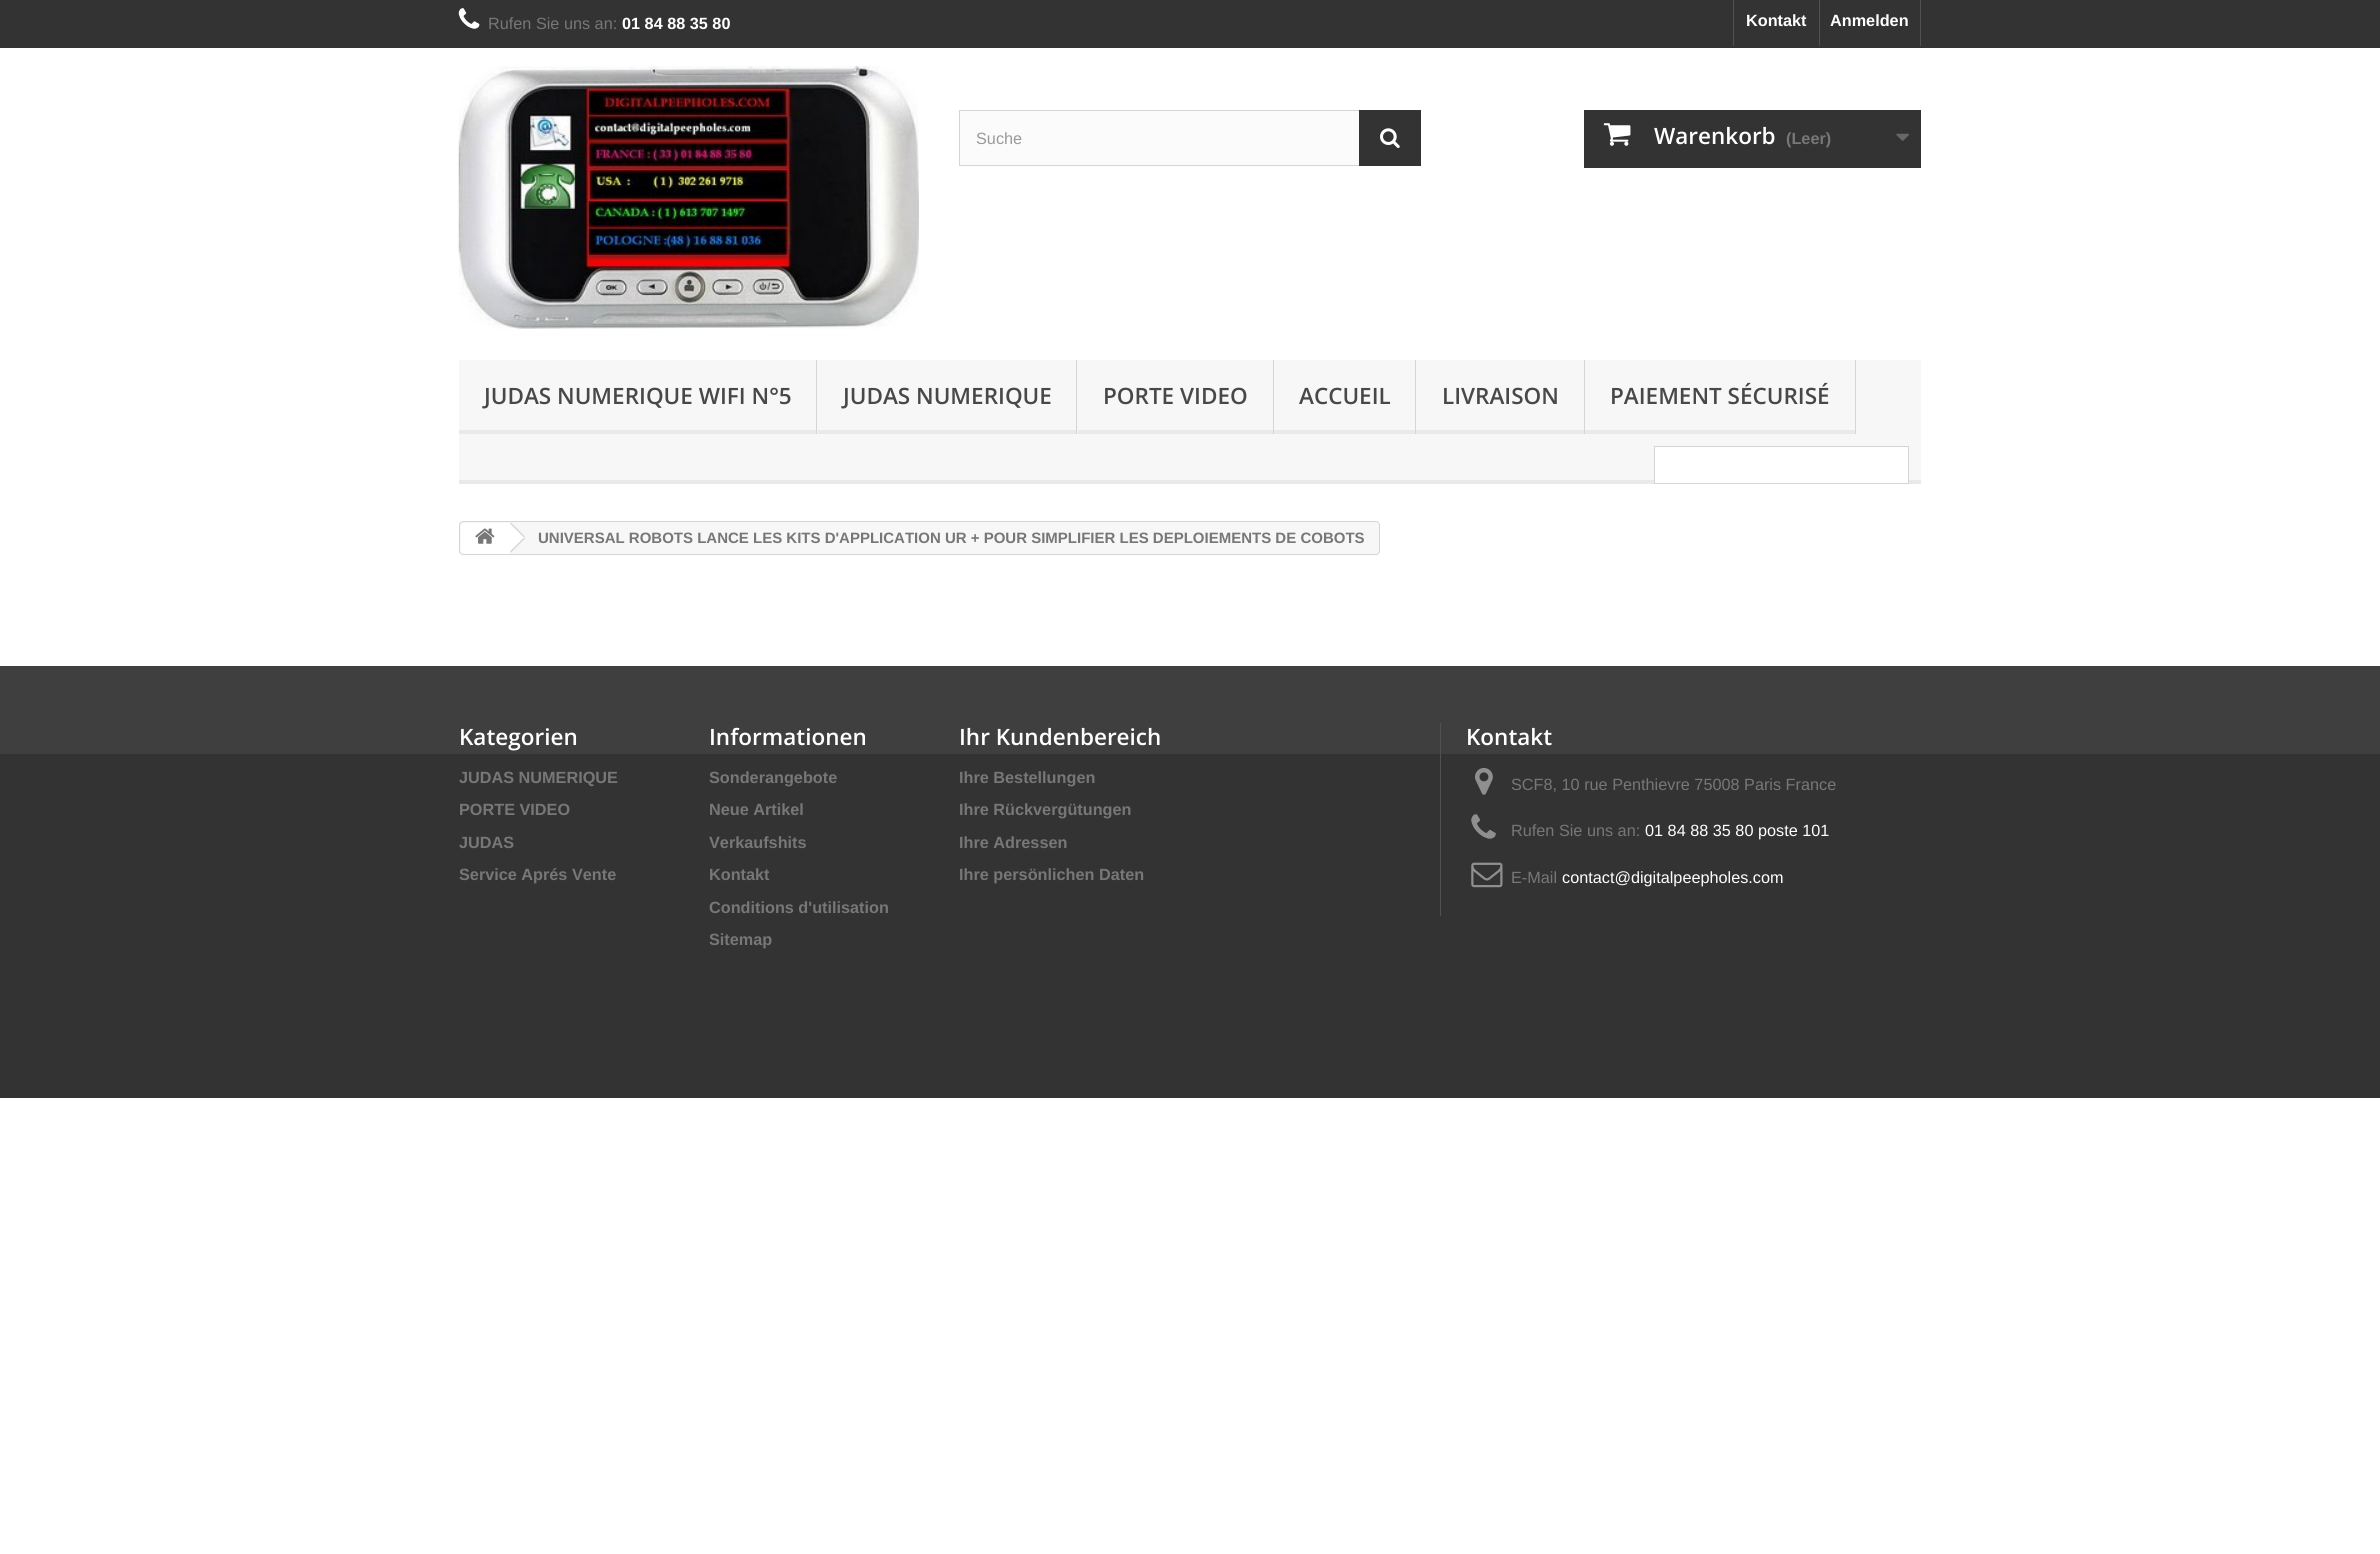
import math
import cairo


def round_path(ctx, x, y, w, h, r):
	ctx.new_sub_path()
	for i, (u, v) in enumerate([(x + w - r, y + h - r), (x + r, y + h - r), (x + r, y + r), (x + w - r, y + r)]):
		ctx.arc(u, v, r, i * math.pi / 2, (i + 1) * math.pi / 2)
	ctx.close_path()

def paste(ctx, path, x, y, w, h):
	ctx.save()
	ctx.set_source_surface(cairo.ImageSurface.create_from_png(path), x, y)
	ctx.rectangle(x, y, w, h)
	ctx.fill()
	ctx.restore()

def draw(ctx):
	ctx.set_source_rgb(1, 1, 1)
	ctx.paint()
	ctx.set_source_rgb(0.2, 0.2, 0.2)
	ctx.rectangle(0, 0, 2380, 48)
	ctx.fill()
	paste(ctx, 'media/1.png', 458, 8, 22, 21)
	ctx.select_font_face('Liberation Sans')
	ctx.set_font_size(16.25)
	ctx.set_source_rgb(0.467, 0.467, 0.467)
	ctx.move_to(488, 29)
	ctx.show_text('Rufen Sie uns an:')
	ctx.select_font_face('Liberation Sans', cairo.FONT_SLANT_NORMAL, cairo.FONT_WEIGHT_BOLD)
	ctx.set_source_rgb(1, 1, 1)
	ctx.move_to(622, 29)
	ctx.show_text('01 84 88 35 80')
	ctx.set_source_rgb(0.318, 0.318, 0.318)
	ctx.rectangle(1733, 0, 1, 46)
	ctx.fill()
	ctx.set_source_rgb(1, 1, 1)
	ctx.move_to(1746, 26)
	ctx.show_text('Kontakt')
	ctx.set_source_rgb(0.318, 0.318, 0.318)
	ctx.rectangle(1920, 0, 1, 46)
	ctx.fill()
	ctx.rectangle(1819, 0, 1, 46)
	ctx.fill()
	ctx.set_source_rgb(1, 1, 1)
	ctx.move_to(1830, 26)
	ctx.show_text('Anmelden')
	paste(ctx, 'media/2.png', 458, 66, 461, 263)
	ctx.set_source_rgb(0.984, 0.984, 0.984)
	ctx.rectangle(960, 111, 399, 54)
	ctx.fill()
	ctx.rectangle(959.5, 110.5, 461, 55)
	ctx.set_source_rgb(0.839, 0.831, 0.831)
	ctx.set_line_width(1)
	ctx.stroke()
	ctx.select_font_face('Liberation Sans')
	ctx.set_source_rgb(0.6, 0.6, 0.6)
	ctx.move_to(976, 144)
	ctx.show_text('Suche')
	ctx.set_source_rgb(0.2, 0.2, 0.2)
	ctx.rectangle(1359, 110, 62, 56)
	ctx.fill()
	paste(ctx, 'media/3.png', 1380, 128, 20, 20)
	ctx.rectangle(1584, 110, 337, 58)
	ctx.fill()
	paste(ctx, 'media/4.png', 1603, 123, 28, 23)
	ctx.select_font_face('Open Sans SemiBold')
	ctx.set_font_size(22.5)
	ctx.set_source_rgb(1, 1, 1)
	ctx.move_to(1654, 144)
	ctx.show_text('Warenkorb')
	ctx.select_font_face('Liberation Sans', cairo.FONT_SLANT_NORMAL, cairo.FONT_WEIGHT_BOLD)
	ctx.set_font_size(16.25)
	ctx.set_source_rgb(0.467, 0.467, 0.467)
	ctx.move_to(1786, 144)
	ctx.show_text('(Leer)')
	paste(ctx, 'media/5.png', 1896, 133, 13, 8)
	ctx.set_source_rgb(0.965, 0.965, 0.965)
	ctx.rectangle(459, 360, 1462, 120)
	ctx.fill()
	ctx.set_source_rgb(0.914, 0.914, 0.914)
	ctx.rectangle(459, 480, 1462, 4)
	ctx.fill()
	ctx.set_source_rgb(0.839, 0.831, 0.831)
	ctx.rectangle(816, 360, 1, 74)
	ctx.fill()
	ctx.set_source_rgb(0.914, 0.914, 0.914)
	ctx.rectangle(459, 430, 357, 4)
	ctx.fill()
	ctx.select_font_face('Open Sans SemiBold')
	ctx.set_font_size(22.5)
	ctx.set_source_rgb(0.282, 0.282, 0.282)
	ctx.move_to(484, 404)
	ctx.show_text('JUDAS NUMERIQUE WIFI N°5')
	ctx.set_source_rgb(0.839, 0.831, 0.831)
	ctx.rectangle(1076, 360, 1, 74)
	ctx.fill()
	ctx.set_source_rgb(0.914, 0.914, 0.914)
	ctx.rectangle(818, 430, 258, 4)
	ctx.fill()
	ctx.set_source_rgb(0.282, 0.282, 0.282)
	ctx.move_to(843, 404)
	ctx.show_text('JUDAS NUMERIQUE')
	ctx.set_source_rgb(0.839, 0.831, 0.831)
	ctx.rectangle(1273, 360, 1, 74)
	ctx.fill()
	ctx.set_source_rgb(0.914, 0.914, 0.914)
	ctx.rectangle(1078, 430, 195, 4)
	ctx.fill()
	ctx.set_source_rgb(0.282, 0.282, 0.282)
	ctx.move_to(1103, 404)
	ctx.show_text('PORTE VIDEO')
	ctx.set_source_rgb(0.839, 0.831, 0.831)
	ctx.rectangle(1415, 360, 1, 74)
	ctx.fill()
	ctx.set_source_rgb(0.914, 0.914, 0.914)
	ctx.rectangle(1274, 430, 141, 4)
	ctx.fill()
	ctx.set_source_rgb(0.282, 0.282, 0.282)
	ctx.move_to(1299, 404)
	ctx.show_text('ACCUEIL')
	ctx.set_source_rgb(0.839, 0.831, 0.831)
	ctx.rectangle(1584, 360, 1, 74)
	ctx.fill()
	ctx.set_source_rgb(0.914, 0.914, 0.914)
	ctx.rectangle(1416, 430, 168, 4)
	ctx.fill()
	ctx.set_source_rgb(0.282, 0.282, 0.282)
	ctx.move_to(1442, 404)
	ctx.show_text('LIVRAISON')
	ctx.set_source_rgb(0.839, 0.831, 0.831)
	ctx.rectangle(1855, 360, 1, 74)
	ctx.fill()
	ctx.set_source_rgb(0.914, 0.914, 0.914)
	ctx.rectangle(1585, 430, 270, 4)
	ctx.fill()
	ctx.set_source_rgb(0.282, 0.282, 0.282)
	ctx.move_to(1610, 404)
	ctx.show_text('PAIEMENT SÉCURISÉ')
	ctx.set_source_rgb(1, 1, 1)
	ctx.rectangle(1654.5, 446.5, 254, 37)
	ctx.fill_preserve()
	ctx.set_source_rgb(0.839, 0.831, 0.831)
	ctx.stroke()
	ctx.set_source_rgb(0.965, 0.965, 0.965)
	round_path(ctx, 459.5, 521.5, 920, 33, 3.5)
	ctx.fill_preserve()
	ctx.set_source_rgb(0.839, 0.831, 0.831)
	ctx.stroke()
	ctx.set_source_rgb(1, 1, 1)
	ctx.new_path()
	ctx.move_to(465, 523)
	ctx.line_to(509, 523)
	ctx.line_to(509, 554)
	ctx.line_to(465, 554)
	ctx.curve_to(463, 554, 461, 552, 461, 550)
	ctx.line_to(461, 527)
	ctx.curve_to(461, 525, 463, 523, 465, 523)
	ctx.close_path()
	ctx.fill()
	paste(ctx, 'media/6.png', 475, 528, 20, 16)
	ctx.new_path()
	ctx.move_to(512, 523.5)
	ctx.line_to(511.5, 523)
	ctx.line_to(508.5, 523)
	ctx.line_to(508, 523.5)
	ctx.line_to(496, 535.5)
	ctx.curve_to(495, 536.5, 495, 538.5, 496, 539.5)
	ctx.line_to(508, 551.5)
	ctx.curve_to(509, 552.5, 511, 552.5, 512, 551.5)
	ctx.line_to(524, 539.5)
	ctx.curve_to(525, 538.5, 525, 536.5, 524, 535.5)
	ctx.close_path()
	ctx.fill()
	ctx.set_source_rgb(0.839, 0.831, 0.831)
	ctx.new_path()
	ctx.move_to(511, 522.5)
	ctx.line_to(525, 536.5)
	ctx.line_to(524, 537.5)
	ctx.line_to(510, 523.5)
	ctx.close_path()
	ctx.fill()
	ctx.new_path()
	ctx.move_to(524, 537.5)
	ctx.line_to(525, 538.5)
	ctx.line_to(511, 552.5)
	ctx.line_to(510, 551.5)
	ctx.close_path()
	ctx.fill()
	ctx.select_font_face('Liberation Sans', cairo.FONT_SLANT_NORMAL, cairo.FONT_WEIGHT_BOLD)
	ctx.set_font_size(15)
	ctx.set_source_rgb(0.467, 0.467, 0.467)
	ctx.move_to(538, 543)
	ctx.show_text('UNIVERSAL ROBOTS LANCE LES KITS D\'APPLICATION UR + POUR SIMPLIFIER LES DEPLOIEMENTS DE COBOTS')
	ctx.set_source_rgb(0.2, 0.2, 0.2)
	ctx.rectangle(0, 754, 2380, 344)
	ctx.fill()
	ctx.set_source_rgb(0.247, 0.247, 0.247)
	ctx.rectangle(0, 666, 2380, 88)
	ctx.fill()
	ctx.select_font_face('Open Sans SemiBold')
	ctx.set_font_size(22.5)
	ctx.set_source_rgb(1, 1, 1)
	ctx.move_to(459, 745)
	ctx.show_text('Kategorien')
	ctx.select_font_face('Liberation Sans', cairo.FONT_SLANT_NORMAL, cairo.FONT_WEIGHT_BOLD)
	ctx.set_font_size(16.25)
	ctx.set_source_rgb(0.467, 0.467, 0.467)
	for x, y, s in [
		(459, 783, 'JUDAS NUMERIQUE'),
		(459, 815, 'PORTE VIDEO'),
		(459, 848, 'JUDAS'),
		(459, 880, 'Service Aprés Vente'),
	]:
		ctx.move_to(x, y)
		ctx.show_text(s)
	ctx.select_font_face('Open Sans SemiBold')
	ctx.set_font_size(22.5)
	ctx.set_source_rgb(1, 1, 1)
	ctx.move_to(709, 745)
	ctx.show_text('Informationen')
	ctx.select_font_face('Liberation Sans', cairo.FONT_SLANT_NORMAL, cairo.FONT_WEIGHT_BOLD)
	ctx.set_font_size(16.25)
	ctx.set_source_rgb(0.467, 0.467, 0.467)
	for x, y, s in [
		(709, 783, 'Sonderangebote'),
		(709, 815, 'Neue Artikel'),
		(709, 848, 'Verkaufshits'),
		(709, 880, 'Kontakt'),
		(709, 913, 'Conditions d\'utilisation'),
		(709, 945, 'Sitemap'),
	]:
		ctx.move_to(x, y)
		ctx.show_text(s)
	ctx.select_font_face('Open Sans SemiBold')
	ctx.set_font_size(22.5)
	ctx.set_source_rgb(1, 1, 1)
	ctx.move_to(959, 745)
	ctx.show_text('Ihr Kundenbereich')
	ctx.select_font_face('Liberation Sans', cairo.FONT_SLANT_NORMAL, cairo.FONT_WEIGHT_BOLD)
	ctx.set_font_size(16.25)
	ctx.set_source_rgb(0.467, 0.467, 0.467)
	for x, y, s in [
		(959, 783, 'Ihre Bestellungen'),
		(959, 815, 'Ihre Rückvergütungen'),
		(959, 848, 'Ihre Adressen'),
		(959, 880, 'Ihre persönlichen Daten'),
	]:
		ctx.move_to(x, y)
		ctx.show_text(s)
	ctx.set_source_rgb(0.318, 0.318, 0.318)
	ctx.rectangle(1440, 723, 1, 193)
	ctx.fill()
	ctx.select_font_face('Open Sans SemiBold')
	ctx.set_font_size(22.5)
	ctx.set_source_rgb(1, 1, 1)
	ctx.move_to(1466, 745)
	ctx.show_text('Kontakt')
	paste(ctx, 'media/7.png', 1475, 768, 18, 27)
	ctx.select_font_face('Liberation Sans')
	ctx.set_font_size(16.25)
	ctx.set_source_rgb(0.467, 0.467, 0.467)
	ctx.move_to(1511, 790)
	ctx.show_text('SCF8, 10 rue Penthievre 75008 Paris France')
	paste(ctx, 'media/8.png', 1471, 814, 25, 25)
	ctx.move_to(1511, 836)
	ctx.show_text('Rufen Sie uns an:')
	ctx.set_source_rgb(1, 1, 1)
	ctx.move_to(1645, 836)
	ctx.show_text('01 84 88 35 80 poste 101')
	paste(ctx, 'media/9.png', 1471, 862, 32, 26)
	ctx.set_source_rgb(0.467, 0.467, 0.467)
	ctx.move_to(1511, 883)
	ctx.show_text('E-Mail')
	ctx.set_source_rgb(1, 1, 1)
	ctx.move_to(1562, 883)
	ctx.show_text('contact@digitalpeepholes.com')


surface = cairo.ImageSurface(cairo.FORMAT_RGB24, 2380, 1554)
ctx = cairo.Context(surface)
options = cairo.FontOptions()
options.set_hint_metrics(cairo.HINT_METRICS_OFF)
options.set_hint_style(cairo.HINT_STYLE_NONE)
ctx.set_font_options(options)
ctx.set_miter_limit(4)
draw(ctx)
surface.write_to_png('image.png')
